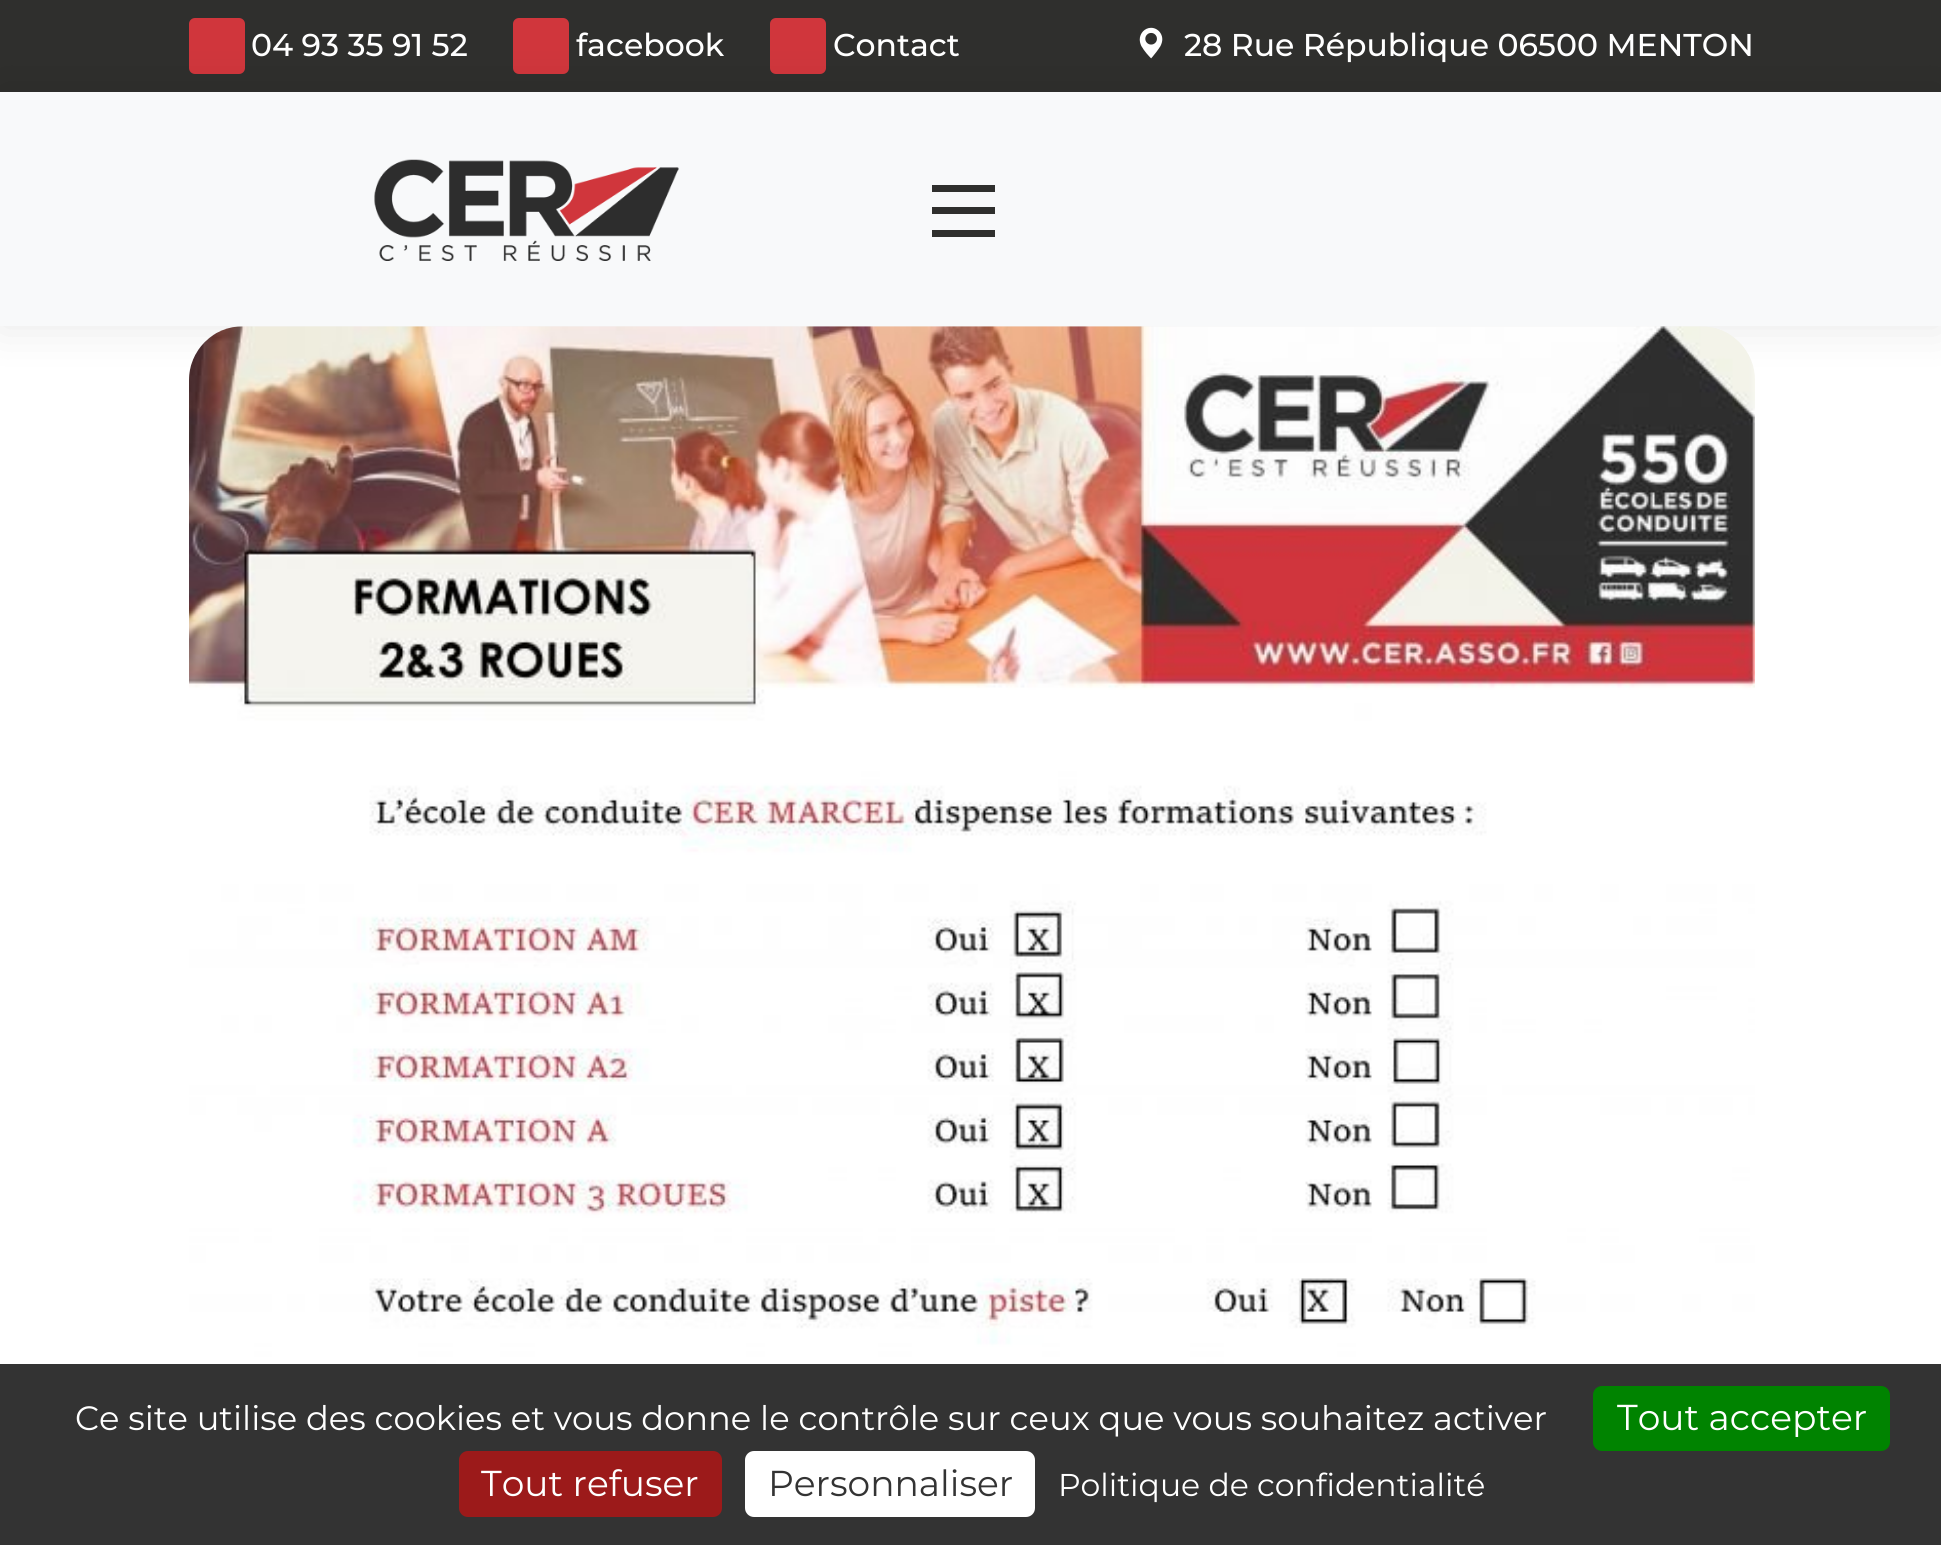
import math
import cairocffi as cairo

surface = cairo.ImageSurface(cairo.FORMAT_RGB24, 1941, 1545)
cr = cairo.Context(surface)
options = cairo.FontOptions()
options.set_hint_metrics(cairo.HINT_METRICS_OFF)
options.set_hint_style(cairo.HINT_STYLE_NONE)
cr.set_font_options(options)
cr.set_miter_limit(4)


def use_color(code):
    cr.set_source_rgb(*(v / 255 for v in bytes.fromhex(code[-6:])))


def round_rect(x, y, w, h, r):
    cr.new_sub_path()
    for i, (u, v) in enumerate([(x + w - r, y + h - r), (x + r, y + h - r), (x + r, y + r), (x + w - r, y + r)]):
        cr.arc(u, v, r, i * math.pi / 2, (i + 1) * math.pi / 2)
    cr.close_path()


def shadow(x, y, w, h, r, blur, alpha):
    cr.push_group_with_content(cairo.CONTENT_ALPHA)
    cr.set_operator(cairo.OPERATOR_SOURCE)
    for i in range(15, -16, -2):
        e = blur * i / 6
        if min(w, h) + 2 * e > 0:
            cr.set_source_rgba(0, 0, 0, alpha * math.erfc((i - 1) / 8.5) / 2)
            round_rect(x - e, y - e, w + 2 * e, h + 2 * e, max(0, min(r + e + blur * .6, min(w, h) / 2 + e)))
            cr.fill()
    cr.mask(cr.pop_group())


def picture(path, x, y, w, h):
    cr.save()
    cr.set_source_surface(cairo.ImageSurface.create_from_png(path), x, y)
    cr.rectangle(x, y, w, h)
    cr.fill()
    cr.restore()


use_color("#ffffff")
cr.paint()
use_color("#2f2f2d")
cr.rectangle(0, 0, 1941, 92)
cr.fill()
use_color("#d0363c")
round_rect(189, 18, 56, 56, 6)
cr.fill()
round_rect(513, 18, 56, 56, 6)
cr.fill()
round_rect(770, 18, 56, 56, 6)
cr.fill()
picture("img2.png", 1139, 27, 24, 32)
use_color("#000000")
shadow(0, 92, 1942, 234, 0, 22.5, 0.1)
use_color("#f8f9fa")
cr.rectangle(0, 92, 1941, 234)
cr.fill()
picture("img1.png", 374, 159, 305, 102)
use_color("#2f2f2d")
cr.rectangle(932, 185, 63, 7)
cr.fill()
cr.rectangle(932, 207, 63, 7)
cr.fill()
cr.rectangle(932, 230, 63, 7)
cr.fill()
cr.select_font_face("Montserrat Medium")
cr.set_font_size(31.5)
use_color("#ffffff")
cr.move_to(251, 56)
cr.show_text("04 93 35 91 52")
cr.move_to(576, 56)
cr.show_text("facebook")
cr.move_to(833, 56)
cr.show_text("Contact")
cr.move_to(1184, 56)
cr.show_text("28 Rue République 06500 MENTON")
picture("img3.png", 189, 326, 1566, 1038)
use_color("#333333")
cr.rectangle(0, 1364, 1941, 181)
cr.fill()
cr.select_font_face("Montserrat")
cr.set_font_size(33.75)
use_color("#ffffff")
cr.move_to(75, 1430)
cr.show_text("Ce site utilise des cookies et vous donne le contrôle sur ceux que vous souhaitez activer")
use_color("#008300")
round_rect(1593, 1386, 297, 65, 9)
cr.fill()
cr.set_font_size(36)
use_color("#ffffff")
cr.move_to(1617, 1430)
cr.show_text("Tout accepter")
use_color("#9c1a1a")
round_rect(459, 1451, 263, 66, 9)
cr.fill()
use_color("#ffffff")
cr.move_to(481, 1496)
cr.show_text("Tout refuser")
round_rect(745, 1451, 290, 66, 9)
cr.fill()
use_color("#333333")
cr.move_to(768, 1496)
cr.show_text("Personnaliser")
cr.set_font_size(31.5)
use_color("#ffffff")
cr.move_to(1058, 1496)
cr.show_text("Politique de confidentialité")
surface.write_to_png("result.png")
